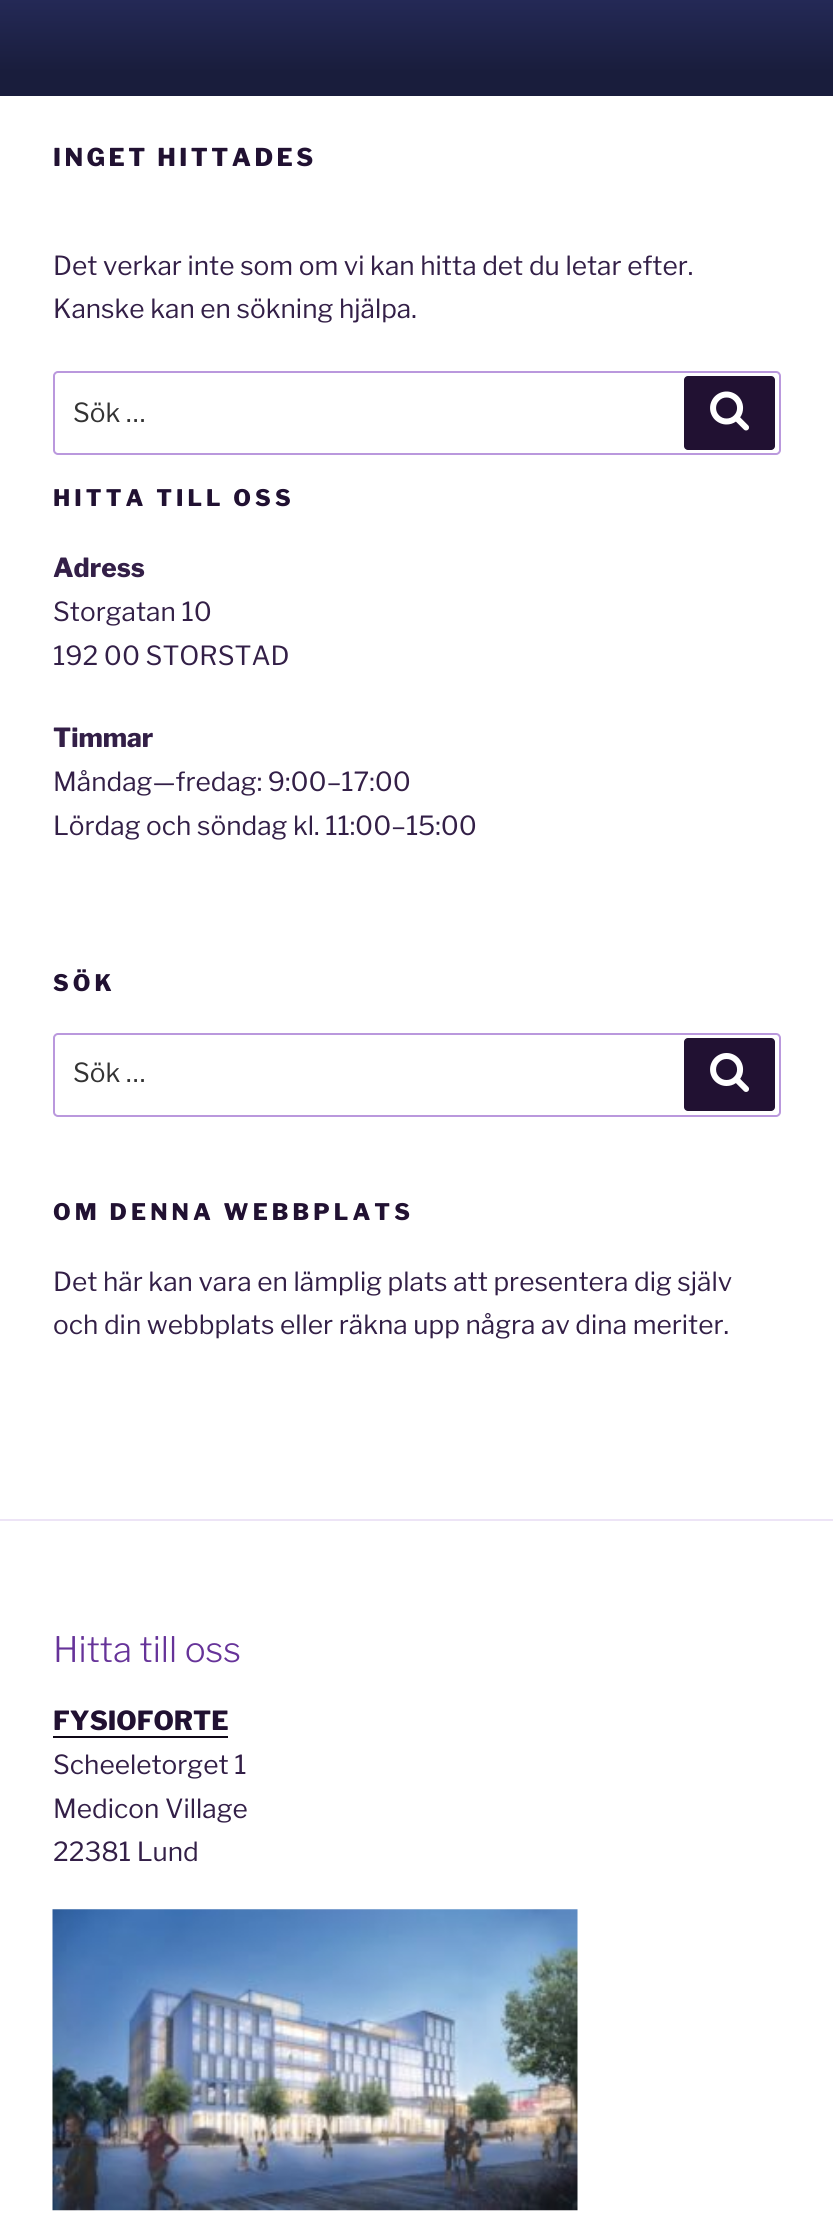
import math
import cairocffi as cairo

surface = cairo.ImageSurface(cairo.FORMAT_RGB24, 833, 2228)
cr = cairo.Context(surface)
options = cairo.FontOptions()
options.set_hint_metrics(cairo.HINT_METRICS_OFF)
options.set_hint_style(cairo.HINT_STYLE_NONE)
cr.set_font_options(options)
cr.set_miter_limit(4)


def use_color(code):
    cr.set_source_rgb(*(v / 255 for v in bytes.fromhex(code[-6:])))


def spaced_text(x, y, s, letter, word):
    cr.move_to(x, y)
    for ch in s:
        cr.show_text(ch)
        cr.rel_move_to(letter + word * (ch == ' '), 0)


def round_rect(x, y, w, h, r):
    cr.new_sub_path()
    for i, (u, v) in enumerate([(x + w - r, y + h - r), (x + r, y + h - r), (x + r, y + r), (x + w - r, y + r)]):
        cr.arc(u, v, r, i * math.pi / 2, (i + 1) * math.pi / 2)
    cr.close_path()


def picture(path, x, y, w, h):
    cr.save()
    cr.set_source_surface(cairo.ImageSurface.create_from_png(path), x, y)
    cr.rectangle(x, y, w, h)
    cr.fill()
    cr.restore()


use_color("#ffffff")
cr.paint()
gradient = cairo.LinearGradient(417, 0, 417, 96)
gradient.add_color_stop_rgba(0, 0.141, 0.161, 0.337, 1)
gradient.add_color_stop_rgba(0.75, 0.098, 0.114, 0.235, 1)
gradient.add_color_stop_rgba(1, 0.098, 0.114, 0.235, 1)
cr.set_source(gradient)
cr.rectangle(0, 0, 833, 96)
cr.fill()
cr.select_font_face("Libre Franklin Thin")
cr.set_font_size(24.5)
use_color("#211132")
spaced_text(53, 166, "INGET HITTADES", 3.5, 0)
cr.select_font_face("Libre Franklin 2 Thin")
cr.set_font_size(26.25)
use_color("#331f47")
cr.move_to(53, 275)
cr.show_text("Det verkar inte som om vi kan hitta det du letar efter.")
cr.move_to(53, 318)
cr.show_text("Kanske kan en sökning hjälpa.")
round_rect(54, 372, 726, 82, 4)
use_color("#ba98dd")
cr.stroke()
use_color("#333333")
cr.move_to(73, 422)
cr.show_text("Sök …")
use_color("#211132")
round_rect(684, 376, 91, 74, 4)
cr.fill()
picture("img1.png", 710, 391, 39, 40)
cr.select_font_face("Libre Franklin Thin")
cr.set_font_size(22.75)
spaced_text(53, 506, "HITTA TILL OSS", 4.1, 0)
cr.set_font_size(26.25)
use_color("#331f47")
cr.move_to(53, 577)
cr.show_text("Adress")
cr.select_font_face("Libre Franklin 2 Thin")
cr.move_to(53, 621)
cr.show_text("Storgatan 10")
cr.move_to(53, 665)
cr.show_text("192 00 STORSTAD")
cr.select_font_face("Libre Franklin Thin")
cr.move_to(53, 747)
cr.show_text("Timmar")
cr.select_font_face("Libre Franklin 2 Thin")
cr.move_to(53, 791)
cr.show_text("Måndag—fredag: 9:00–17:00")
cr.move_to(53, 835)
cr.show_text("Lördag och söndag kl. 11:00–15:00")
cr.select_font_face("Libre Franklin Thin")
cr.set_font_size(22.75)
use_color("#211132")
spaced_text(53, 991, "SÖK", 4.1, 0)
round_rect(54, 1034, 726, 82, 4)
use_color("#ba98dd")
cr.stroke()
cr.select_font_face("Libre Franklin 2 Thin")
cr.set_font_size(26.25)
use_color("#333333")
cr.move_to(73, 1082)
cr.show_text("Sök …")
use_color("#211132")
round_rect(684, 1038, 91, 73, 4)
cr.fill()
picture("img2.png", 710, 1053, 39, 39)
cr.select_font_face("Libre Franklin Thin")
cr.set_font_size(22.75)
spaced_text(53, 1220, "OM DENNA WEBBPLATS", 4.1, 0)
cr.select_font_face("Libre Franklin 2 Thin")
cr.set_font_size(26.25)
use_color("#331f47")
cr.move_to(53, 1291)
cr.show_text("Det här kan vara en lämplig plats att presentera dig själv")
cr.move_to(53, 1334)
cr.show_text("och din webbplats eller räkna upp några av dina meriter.")
use_color("#ede4f6")
cr.rectangle(0, 1519, 833, 2)
cr.fill()
cr.select_font_face("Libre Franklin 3 Thin")
cr.set_font_size(35)
use_color("#663399")
cr.move_to(53, 1662)
cr.show_text("Hitta till oss")
cr.select_font_face("Libre Franklin Thin")
cr.set_font_size(26.25)
use_color("#211132")
cr.move_to(53, 1730)
cr.show_text("FYSIOFORTE")
use_color("#0f0817")
cr.rectangle(53, 1736, 175, 2)
cr.fill()
cr.select_font_face("Libre Franklin 2 Thin")
use_color("#331f47")
cr.move_to(53, 1774)
cr.show_text("Scheeletorget 1")
cr.move_to(53, 1818)
cr.show_text("Medicon Village")
cr.move_to(53, 1861)
cr.show_text("22381 Lund")
picture("img3.png", 52, 1909, 526, 302)
surface.write_to_png("result.png")
